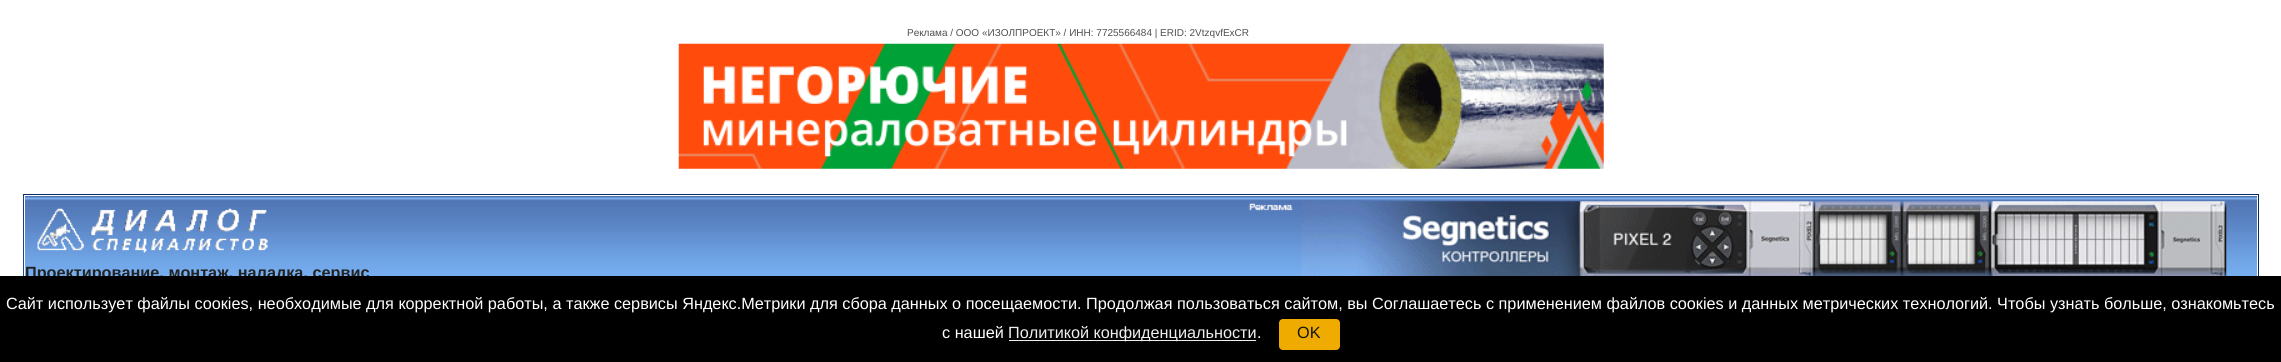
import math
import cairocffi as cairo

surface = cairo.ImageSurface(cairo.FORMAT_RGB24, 2281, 362)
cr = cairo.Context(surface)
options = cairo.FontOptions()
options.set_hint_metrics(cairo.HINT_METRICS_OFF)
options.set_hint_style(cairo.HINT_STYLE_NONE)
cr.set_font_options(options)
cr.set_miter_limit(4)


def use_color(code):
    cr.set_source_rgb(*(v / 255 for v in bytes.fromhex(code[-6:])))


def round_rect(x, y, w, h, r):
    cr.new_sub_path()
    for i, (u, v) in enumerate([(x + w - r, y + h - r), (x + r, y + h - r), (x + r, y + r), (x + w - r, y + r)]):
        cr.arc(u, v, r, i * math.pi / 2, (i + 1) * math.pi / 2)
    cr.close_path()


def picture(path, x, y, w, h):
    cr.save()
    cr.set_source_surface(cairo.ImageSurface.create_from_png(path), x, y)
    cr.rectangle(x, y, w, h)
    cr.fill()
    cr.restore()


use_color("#ffffff")
cr.paint()
cr.select_font_face("Liberation Sans")
cr.set_font_size(10)
use_color("#4f4f4f")
cr.move_to(907, 36)
cr.show_text("Реклама / ООО «ИЗОЛПРОЕКТ» / ИНН: 7725566484 | ERID: 2VtzqvfExCR")
picture("img1.png", 678, 43, 926, 126)
cr.rectangle(23.5, 194.5, 2235, 126)
use_color("#072a66")
cr.set_line_width(1)
cr.stroke()
picture("img2.png", 23, 195, 2234, 81)
cr.rectangle(24.5, 195.5, 2233, 87)
use_color("#ffffff")
cr.stroke()
picture("img3.png", 37, 208, 231, 45)
cr.select_font_face("Liberation Sans", cairo.FONT_SLANT_NORMAL, cairo.FONT_WEIGHT_BOLD)
cr.set_font_size(16.25)
use_color("#222222")
cr.move_to(25, 278)
cr.show_text("Проектирование, монтаж, наладка, сервис")
picture("img4.png", 1248, 203, 45, 8)
picture("img5.png", 1301, 201, 926, 75)
use_color("#000000")
cr.rectangle(0, 276, 2281, 86)
cr.fill()
cr.select_font_face("Liberation Sans")
use_color("#ffffff")
cr.move_to(6, 309)
cr.show_text("Сайт использует файлы соокies, необходимые для корректной работы, а также сервисы Яндекс.Метрики для сбора данных о посещаемости. Продолжая пользоваться сайтом, вы Соглашаетесь с применением файлов соокies и данных метрических технологий. Чтобы узнать больше, ознакомьтесь")
cr.move_to(942, 338)
cr.show_text("с нашей")
use_color("#efefef")
cr.rectangle(1009, 340, 247, 1)
cr.fill()
cr.move_to(1008, 338)
cr.show_text("Политикой конфиденциальности")
use_color("#ffffff")
cr.move_to(1257, 338)
cr.show_text(".")
use_color("#f0ab00")
round_rect(1279, 319, 61, 31, 4)
cr.fill()
use_color("#131313")
cr.move_to(1297, 338)
cr.show_text("OK")
surface.write_to_png("result.png")
